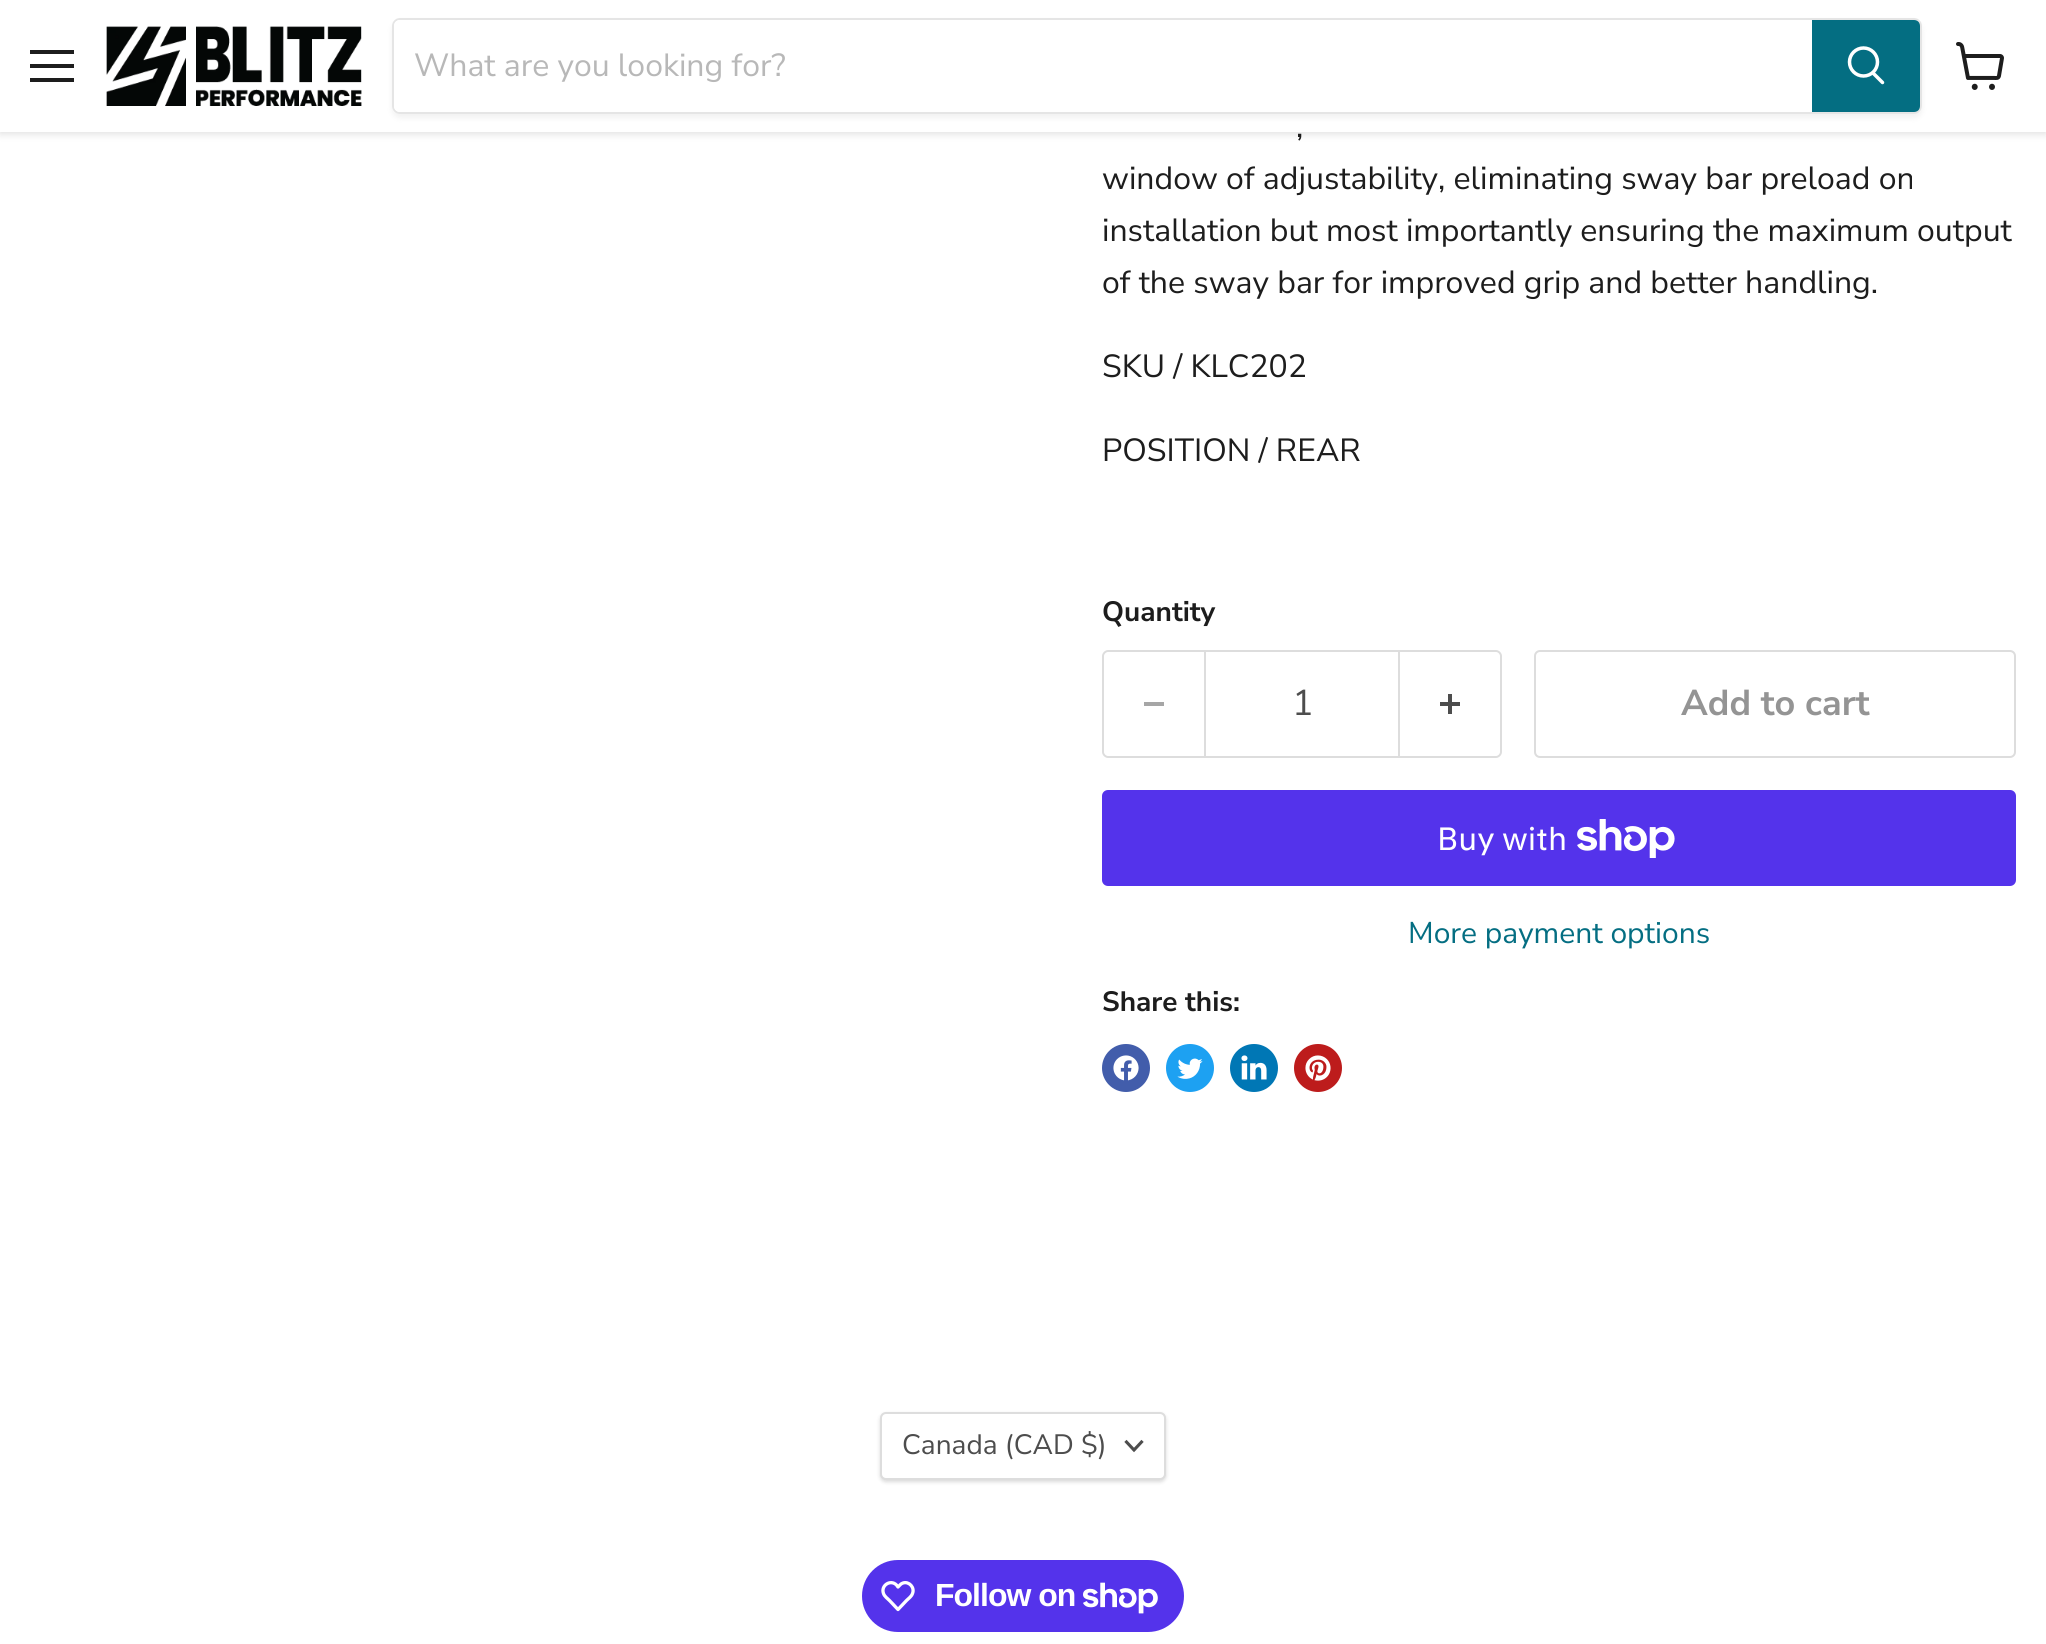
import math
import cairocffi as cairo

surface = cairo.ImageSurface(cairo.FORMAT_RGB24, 2046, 1644)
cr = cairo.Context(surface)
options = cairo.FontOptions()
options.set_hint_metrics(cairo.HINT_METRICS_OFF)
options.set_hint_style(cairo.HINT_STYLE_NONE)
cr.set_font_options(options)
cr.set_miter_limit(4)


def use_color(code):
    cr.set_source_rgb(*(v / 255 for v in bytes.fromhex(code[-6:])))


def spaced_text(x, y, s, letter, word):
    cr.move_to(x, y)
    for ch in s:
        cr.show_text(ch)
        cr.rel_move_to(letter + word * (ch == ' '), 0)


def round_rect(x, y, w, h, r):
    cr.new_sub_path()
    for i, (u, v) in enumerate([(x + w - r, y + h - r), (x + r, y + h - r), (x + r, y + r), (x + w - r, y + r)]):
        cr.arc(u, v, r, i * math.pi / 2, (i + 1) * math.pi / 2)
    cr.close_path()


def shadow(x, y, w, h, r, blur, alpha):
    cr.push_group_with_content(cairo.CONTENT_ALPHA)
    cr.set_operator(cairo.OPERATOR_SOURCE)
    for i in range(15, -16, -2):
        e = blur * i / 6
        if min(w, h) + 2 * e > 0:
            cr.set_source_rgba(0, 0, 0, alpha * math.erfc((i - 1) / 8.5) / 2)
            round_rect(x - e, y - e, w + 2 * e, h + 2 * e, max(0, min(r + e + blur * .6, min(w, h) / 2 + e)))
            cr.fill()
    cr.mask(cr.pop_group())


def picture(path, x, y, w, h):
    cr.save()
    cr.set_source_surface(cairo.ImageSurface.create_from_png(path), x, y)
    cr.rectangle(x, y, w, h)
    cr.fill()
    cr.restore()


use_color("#ffffff")
cr.paint()
use_color("#808080")
shadow(0, 2, 2046, 132, 0, 4, 0.25)
use_color("#ffffff")
cr.rectangle(0, 0, 2046, 132)
cr.fill()
use_color("#1d1d1d")
cr.rectangle(30, 50, 44, 4)
cr.fill()
cr.rectangle(30, 64, 44, 4)
cr.fill()
cr.rectangle(30, 78, 44, 4)
cr.fill()
picture("img1.png", 106, 26, 256, 80)
cr.save()
cr.set_fill_rule(cairo.FILL_RULE_EVEN_ODD)
cr.new_path()
cr.move_to(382, 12)
cr.line_to(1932, 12)
cr.line_to(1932, 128)
cr.line_to(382, 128)
cr.close_path()
cr.move_to(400, 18)
cr.line_to(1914, 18)
cr.curve_to(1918.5, 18, 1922, 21.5, 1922, 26)
cr.line_to(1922, 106)
cr.curve_to(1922, 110.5, 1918.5, 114, 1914, 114)
cr.line_to(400, 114)
cr.curve_to(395.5, 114, 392, 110.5, 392, 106)
cr.line_to(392, 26)
cr.curve_to(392, 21.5, 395.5, 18, 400, 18)
cr.close_path()
cr.clip()
use_color("#808080")
shadow(392, 22, 1530, 96, 8, 3, 0.11)
cr.restore()
round_rect(393, 19, 1528, 94, 7)
cr.set_source_rgba(0.502, 0.502, 0.502, 0.2)
cr.stroke()
use_color("#ffffff")
cr.new_path()
cr.move_to(400, 20)
cr.line_to(1812, 20)
cr.line_to(1812, 112)
cr.line_to(400, 112)
cr.curve_to(396.5, 112, 394, 109.5, 394, 106)
cr.line_to(394, 26)
cr.curve_to(394, 22.5, 396.5, 20, 400, 20)
cr.close_path()
cr.fill()
cr.select_font_face("Nunito Sans")
cr.set_font_size(32)
use_color("#b8b8b8")
cr.move_to(414, 76)
cr.show_text("What are you looking for?")
use_color("#046e82")
cr.new_path()
cr.move_to(1813, 21)
cr.line_to(1914, 21)
cr.curve_to(1917, 21, 1919, 23, 1919, 26)
cr.line_to(1919, 106)
cr.curve_to(1919, 109, 1917, 111, 1914, 111)
cr.line_to(1813, 111)
cr.close_path()
cr.fill_preserve()
cr.stroke()
cr.new_path()
cr.move_to(1882.5, 82.5)
cr.line_to(1873, 73)
use_color("#ffffff")
cr.set_line_width(3.5)
cr.set_line_cap(cairo.LINE_CAP_ROUND)
cr.stroke()
cr.arc(1863.5, 62, 14, 0, 2 * math.pi)
cr.set_line_cap(cairo.LINE_CAP_BUTT)
cr.stroke()
picture("img2.png", 1956, 42, 48, 48)
use_color("#1d1d1d")
cr.move_to(1296, 137)
cr.show_text(",")
cr.move_to(1102, 189)
cr.show_text("window of adjustability, eliminating sway bar preload on")
cr.move_to(1102, 241)
cr.show_text("installation but most importantly ensuring the maximum output")
cr.move_to(1102, 293)
cr.show_text("of the sway bar for improved grip and better handling.")
cr.move_to(1102, 377)
cr.show_text("SKU / KLC202")
cr.move_to(1102, 461)
cr.show_text("POSITION / REAR")
cr.select_font_face("Nunito Sans", cairo.FONT_SLANT_NORMAL, cairo.FONT_WEIGHT_BOLD)
cr.set_font_size(28)
cr.move_to(1102, 621)
cr.show_text("Quantity")
use_color("#dddddd")
cr.set_fill_rule(cairo.FILL_RULE_EVEN_ODD)
cr.new_path()
cr.move_to(1108, 650)
cr.line_to(1204, 650)
cr.line_to(1204, 758)
cr.line_to(1108, 758)
cr.curve_to(1105, 758, 1102, 755, 1102, 752)
cr.line_to(1102, 656)
cr.curve_to(1102, 653, 1105, 650, 1108, 650)
cr.close_path()
cr.move_to(1108, 652)
cr.line_to(1204, 652)
cr.line_to(1204, 756)
cr.line_to(1108, 756)
cr.curve_to(1106, 756, 1104, 754, 1104, 752)
cr.line_to(1104, 656)
cr.curve_to(1104, 654, 1106, 652, 1108, 652)
cr.close_path()
cr.fill()
use_color("#a6a6a6")
cr.rectangle(1144, 702, 20, 4)
cr.fill()
cr.rectangle(1205, 651, 194, 106)
use_color("#dddddd")
cr.set_line_width(2)
cr.stroke()
cr.select_font_face("Nunito Sans")
cr.set_font_size(36)
use_color("#4d4d4d")
cr.move_to(1292, 715)
cr.show_text("1")
use_color("#dddddd")
cr.new_path()
cr.move_to(1400, 650)
cr.line_to(1496, 650)
cr.curve_to(1499, 650, 1502, 653, 1502, 656)
cr.line_to(1502, 752)
cr.curve_to(1502, 755, 1499, 758, 1496, 758)
cr.line_to(1400, 758)
cr.close_path()
cr.move_to(1400, 652)
cr.line_to(1496, 652)
cr.curve_to(1498, 652, 1500, 654, 1500, 656)
cr.line_to(1500, 752)
cr.curve_to(1500, 754, 1498, 756, 1496, 756)
cr.line_to(1400, 756)
cr.close_path()
cr.fill()
picture("img3.png", 1440, 694, 20, 20)
round_rect(1535, 651, 480, 106, 5)
cr.stroke()
cr.select_font_face("Nunito Sans", cairo.FONT_SLANT_NORMAL, cairo.FONT_WEIGHT_BOLD)
use_color("#949494")
cr.move_to(1681, 715)
cr.show_text("Add to cart")
use_color("#5433eb")
round_rect(1102, 790, 914, 96, 6)
cr.fill()
cr.select_font_face("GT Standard")
cr.set_font_size(32)
use_color("#ffffff")
cr.move_to(1437, 850)
cr.show_text("Buy with")
picture("img4.png", 1577, 819, 98, 39)
cr.select_font_face("Nunito Sans")
cr.set_font_size(30)
use_color("#046e82")
cr.move_to(1408, 943)
cr.show_text("More payment options")
cr.select_font_face("Nunito Sans", cairo.FONT_SLANT_NORMAL, cairo.FONT_WEIGHT_BOLD)
cr.set_font_size(28)
use_color("#1d1d1d")
cr.move_to(1102, 1011)
cr.show_text("Share this:")
use_color("#425dab")
cr.new_path()
cr.arc(1126, 1068, 24, 0, 2 * math.pi)
cr.fill()
picture("img5.png", 1113, 1055, 26, 26)
use_color("#1da1f2")
cr.arc(1190, 1068, 24, 0, 2 * math.pi)
cr.fill()
picture("img6.png", 1177, 1058, 26, 21)
use_color("#0077b5")
cr.arc(1254, 1068, 24, 0, 2 * math.pi)
cr.fill()
picture("img7.png", 1241, 1055, 26, 25)
use_color("#bd1c1c")
cr.arc(1318, 1068, 24, 0, 2 * math.pi)
cr.fill()
picture("img8.png", 1305, 1055, 26, 26)
use_color("#000000")
shadow(880, 1414, 286, 68, 6, 2, 0.15)
use_color("#ffffff")
round_rect(881, 1413, 284, 66, 5)
cr.fill_preserve()
use_color("#dddddd")
cr.stroke()
cr.select_font_face("Nunito Sans")
use_color("#4d4d4d")
cr.move_to(902, 1454)
cr.show_text("Canada (CAD $)")
cr.new_path()
cr.move_to(1134, 1450)
cr.line_to(1141.5, 1442)
cr.move_to(1134, 1450)
cr.line_to(1126.5, 1442)
cr.set_line_width(3.1)
cr.set_line_cap(cairo.LINE_CAP_SQUARE)
cr.stroke()
use_color("#5433eb")
round_rect(862, 1560, 322, 72, 36)
cr.fill()
cr.new_path()
cr.move_to(896.5, 1585)
cr.line_to(898, 1587)
cr.curve_to(899.5, 1585.5, 901, 1583.5, 903, 1583)
cr.curve_to(909, 1581, 915, 1587.5, 912.5, 1593.5)
cr.curve_to(911.5, 1596.5, 908.5, 1598.5, 906.5, 1600.5)
cr.line_to(898, 1609.5)
cr.line_to(889.5, 1600.5)
cr.curve_to(887.5, 1598.5, 884.5, 1596.5, 883.5, 1593.5)
cr.curve_to(880.5, 1585.5, 890.5, 1579, 896.5, 1585)
cr.close_path()
use_color("#ffffff")
cr.set_line_width(3.3)
cr.set_line_cap(cairo.LINE_CAP_BUTT)
cr.set_line_join(cairo.LINE_JOIN_ROUND)
cr.stroke()
cr.select_font_face("Liberation Sans", cairo.FONT_SLANT_NORMAL, cairo.FONT_WEIGHT_BOLD)
cr.set_font_size(32)
spaced_text(935, 1606, "Follow on", -1, 0)
picture("img9.png", 1083, 1582, 75, 32)
surface.write_to_png("result.png")
